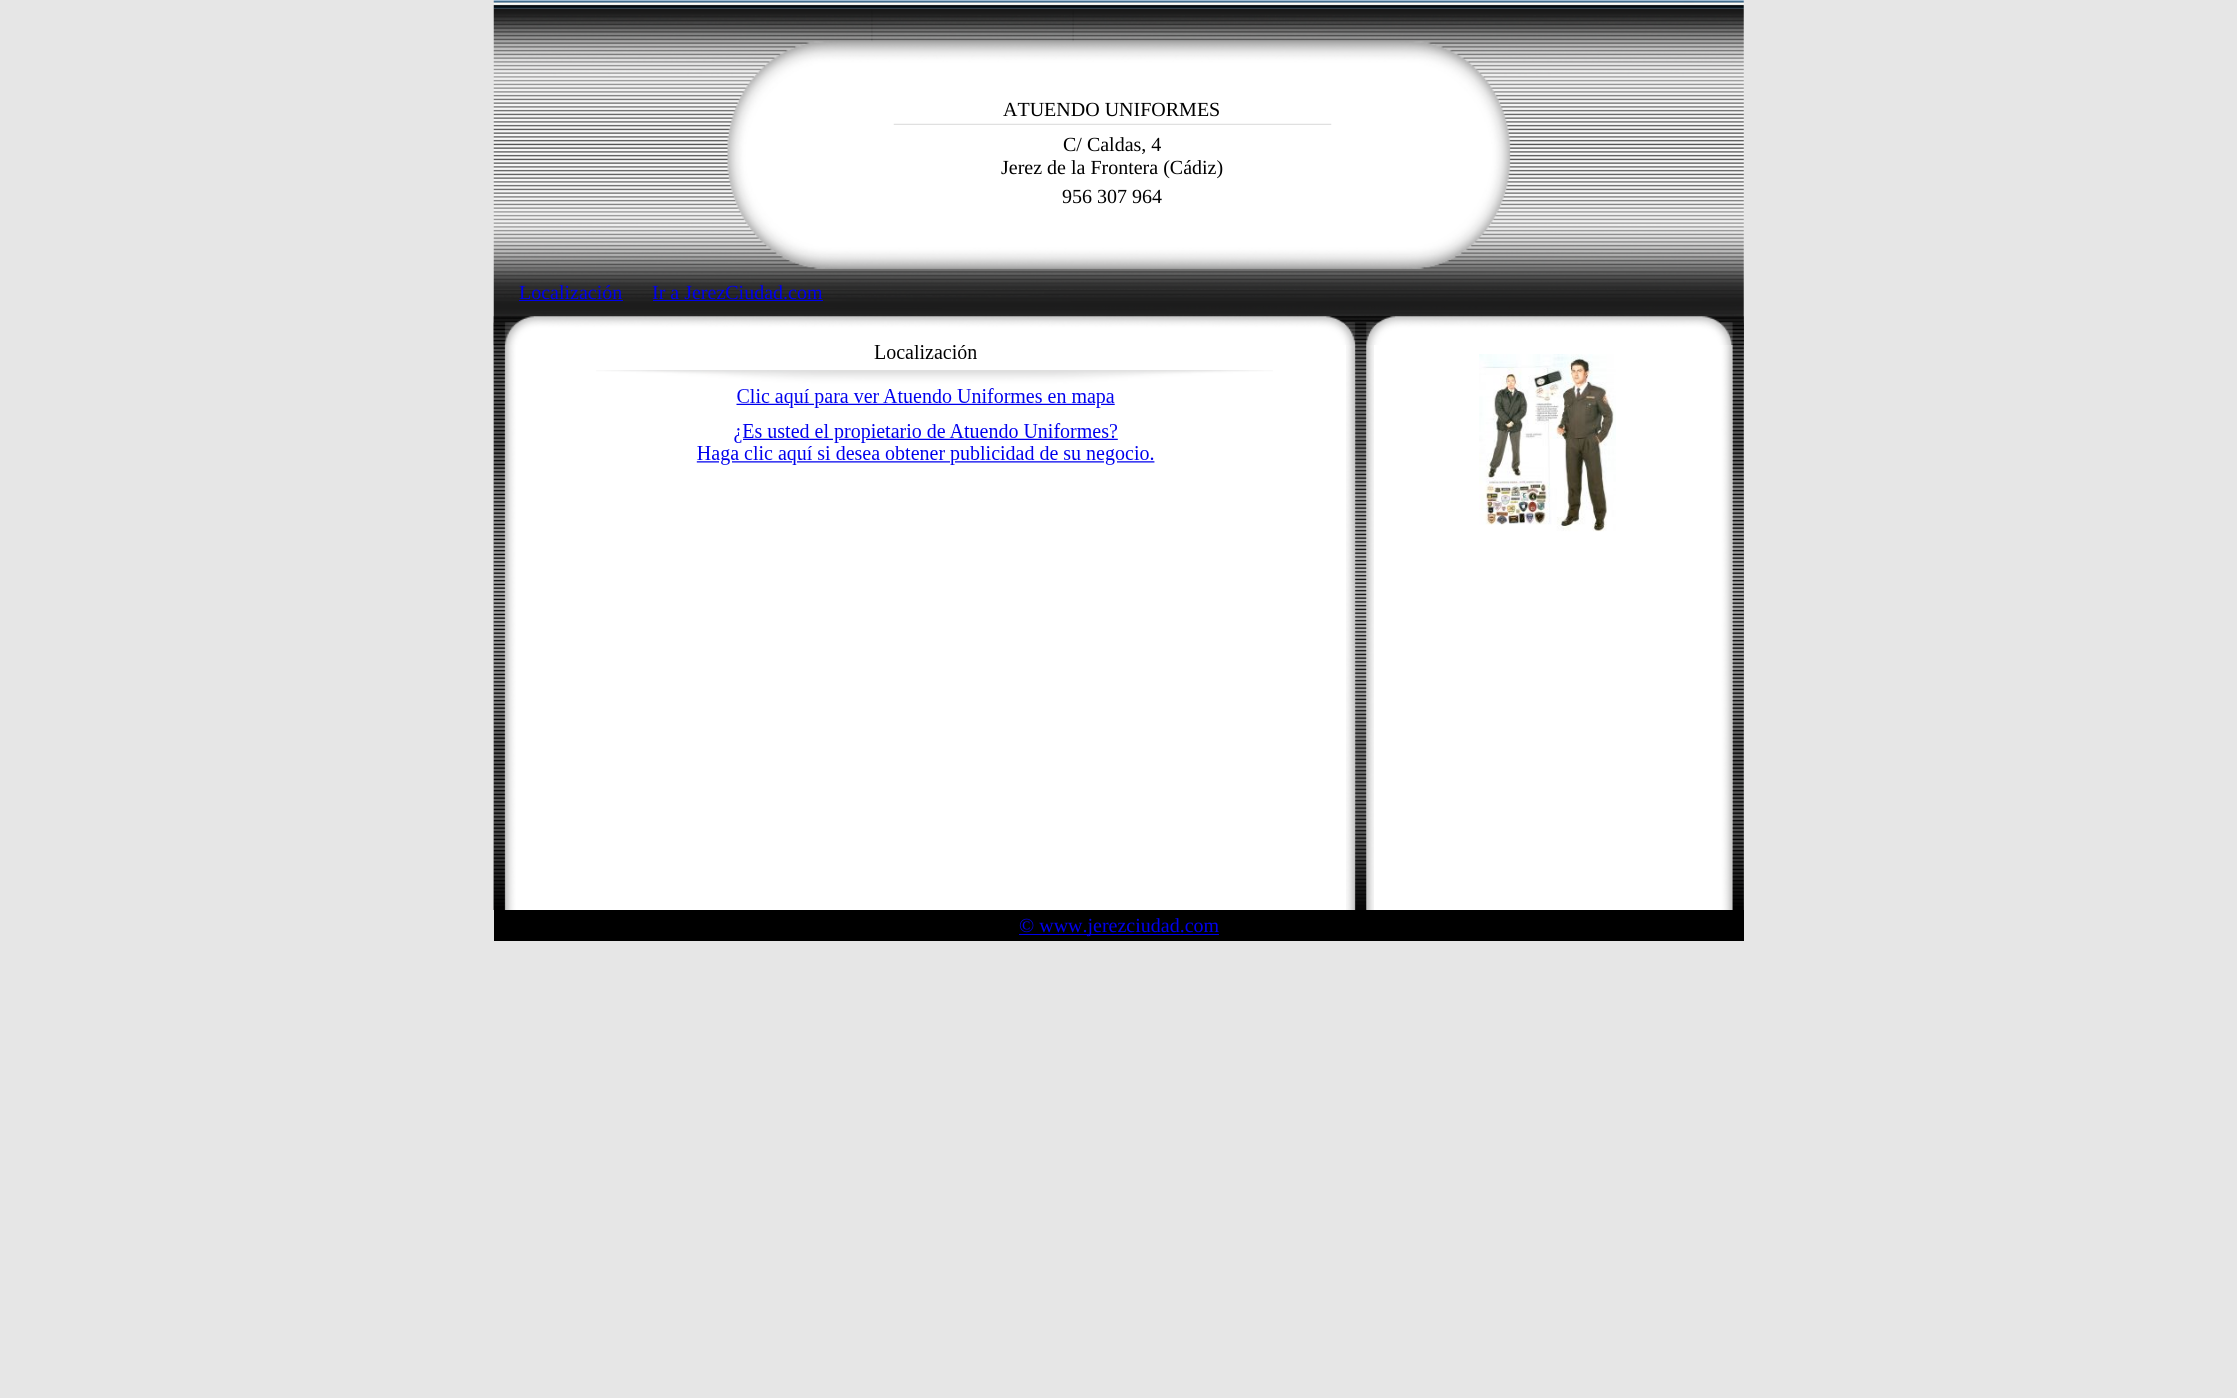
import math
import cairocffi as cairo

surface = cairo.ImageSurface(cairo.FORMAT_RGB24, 2237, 1398)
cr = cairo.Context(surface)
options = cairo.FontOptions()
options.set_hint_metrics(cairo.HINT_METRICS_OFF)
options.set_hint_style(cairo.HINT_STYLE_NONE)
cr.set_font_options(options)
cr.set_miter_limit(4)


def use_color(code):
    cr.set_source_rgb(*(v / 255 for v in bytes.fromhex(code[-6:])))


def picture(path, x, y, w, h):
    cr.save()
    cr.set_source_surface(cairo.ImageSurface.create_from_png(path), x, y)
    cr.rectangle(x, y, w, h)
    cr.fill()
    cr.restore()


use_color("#e6e6e6")
cr.paint()
picture("img2.png", 493, 8, 1251, 261)
picture("img1.png", 493, 0, 1251, 9)
cr.select_font_face("Liberation Serif")
cr.set_font_size(20)
use_color("#000000")
cr.move_to(1003, 116)
cr.show_text("ATUENDO UNIFORMES")
picture("img3.png", 893, 123, 439, 2)
cr.move_to(1063, 151)
cr.show_text("C/ Caldas, 4")
cr.move_to(1001, 174)
cr.show_text("Jerez de la Frontera (Cádiz)")
cr.move_to(1062, 203)
cr.show_text("956 307 964")
picture("img4.png", 493, 268, 1251, 55)
use_color("#0000ee")
cr.move_to(519, 299)
cr.show_text("Localización")
cr.rectangle(519, 300, 104, 1)
cr.fill()
cr.move_to(652, 299)
cr.show_text("Ir a JerezCiudad.com")
cr.rectangle(653, 300, 170, 1)
cr.fill()
use_color("#ffffff")
cr.rectangle(516, 323, 1228, 587)
cr.fill()
picture("img6.png", 493, 322, 24, 588)
picture("img7.png", 493, 322, 24, 588)
picture("img9.png", 1346, 322, 28, 588)
picture("img10.png", 1346, 322, 28, 588)
picture("img12.png", 1721, 322, 23, 588)
picture("img13.png", 1721, 322, 23, 588)
picture("img5.png", 493, 316, 1251, 29)
picture("img8.png", 596, 345, 677, 120)
picture("img11.png", 1479, 354, 137, 178)
use_color("#000000")
cr.rectangle(494, 910, 1250, 31)
cr.fill()
use_color("#0000ee")
cr.rectangle(1019, 934, 200, 1)
cr.fill()
cr.move_to(1019, 932)
cr.show_text("© www.jerezciudad.com")
surface.write_to_png("result.png")
